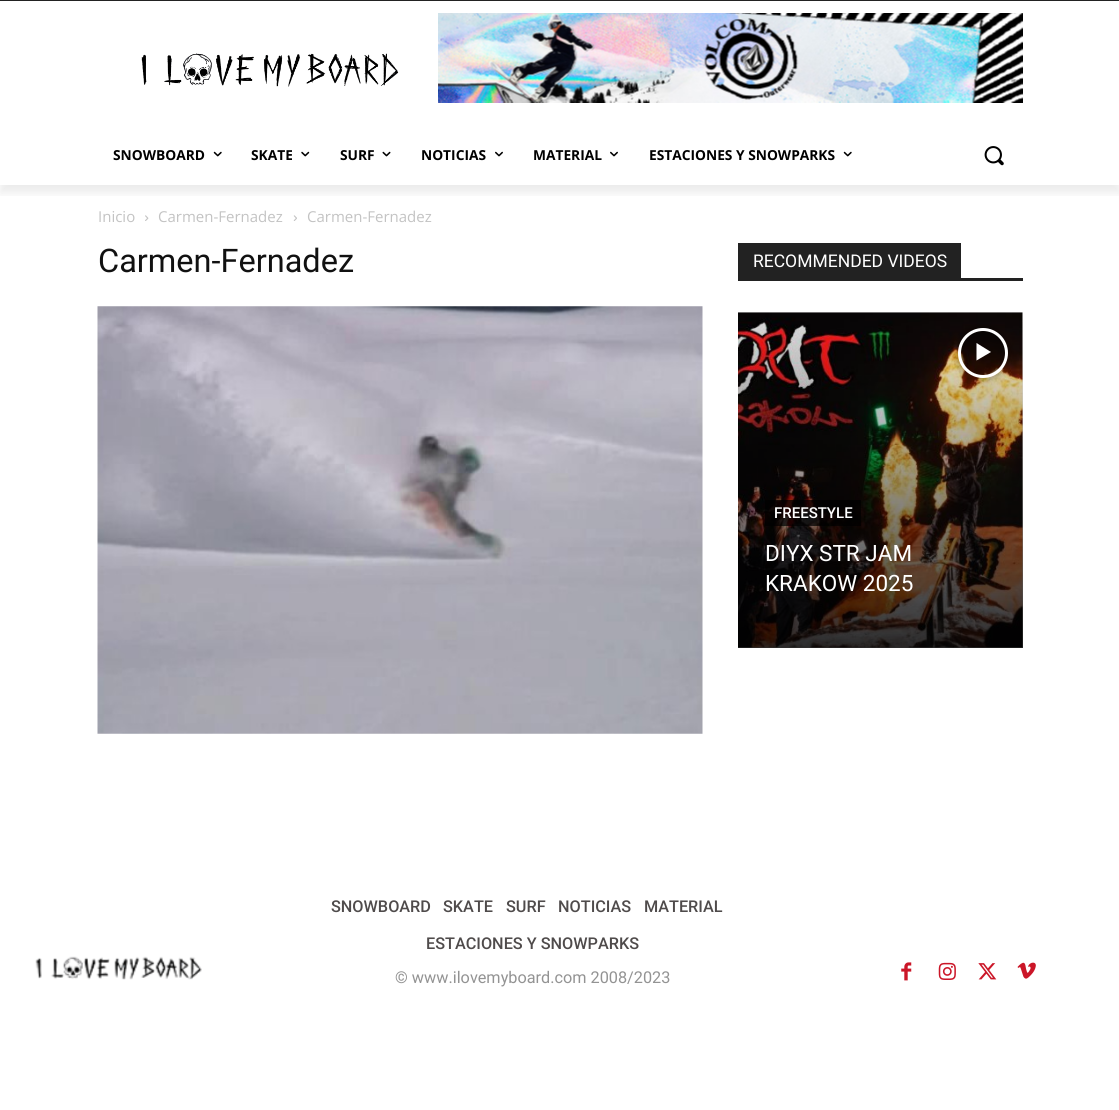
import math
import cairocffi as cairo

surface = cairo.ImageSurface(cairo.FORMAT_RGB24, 1119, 1110)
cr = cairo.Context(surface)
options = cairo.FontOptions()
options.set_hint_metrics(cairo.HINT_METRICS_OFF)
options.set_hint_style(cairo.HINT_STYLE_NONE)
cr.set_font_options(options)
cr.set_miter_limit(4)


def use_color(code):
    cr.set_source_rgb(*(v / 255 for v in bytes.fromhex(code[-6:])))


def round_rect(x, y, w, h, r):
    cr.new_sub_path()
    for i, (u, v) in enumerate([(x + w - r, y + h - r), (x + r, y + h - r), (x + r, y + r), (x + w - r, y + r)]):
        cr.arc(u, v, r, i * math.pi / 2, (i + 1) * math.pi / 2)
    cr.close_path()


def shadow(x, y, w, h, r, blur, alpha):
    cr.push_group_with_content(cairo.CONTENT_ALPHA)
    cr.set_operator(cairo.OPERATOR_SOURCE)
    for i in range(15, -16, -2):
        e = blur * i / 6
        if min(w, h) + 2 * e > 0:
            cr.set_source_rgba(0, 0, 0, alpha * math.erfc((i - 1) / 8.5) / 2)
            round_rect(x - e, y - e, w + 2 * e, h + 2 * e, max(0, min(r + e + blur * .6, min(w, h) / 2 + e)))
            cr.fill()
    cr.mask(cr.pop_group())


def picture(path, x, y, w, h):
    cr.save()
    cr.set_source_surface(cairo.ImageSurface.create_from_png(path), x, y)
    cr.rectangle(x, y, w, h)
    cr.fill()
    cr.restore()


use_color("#ffffff")
cr.paint()
use_color("#222222")
cr.rectangle(0, 0, 1119, 1)
cr.fill()
picture("img1.png", 141, 53, 258, 34)
picture("img2.png", 438, 13, 585, 90)
cr.save()
cr.rectangle(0, 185, 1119, 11)
cr.clip()
use_color("#000000")
shadow(0, 8, 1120, 185, 0, 5, 0.08)
cr.restore()
cr.select_font_face("Open Sans", cairo.FONT_SLANT_NORMAL, cairo.FONT_WEIGHT_BOLD)
cr.set_font_size(13.75)
use_color("#000000")
cr.move_to(113, 160)
cr.show_text("SNOWBOARD")
picture("img3.png", 213, 151, 9, 6)
cr.move_to(251, 160)
cr.show_text("SKATE")
picture("img4.png", 301, 151, 9, 6)
cr.move_to(340, 160)
cr.show_text("SURF")
picture("img5.png", 382, 151, 9, 6)
cr.move_to(421, 160)
cr.show_text("NOTICIAS")
picture("img6.png", 495, 151, 8, 6)
cr.move_to(533, 160)
cr.show_text("MATERIAL")
picture("img6.png", 610, 151, 8, 6)
cr.move_to(649, 160)
cr.show_text("ESTACIONES Y SNOWPARKS")
picture("img3.png", 843, 151, 9, 6)
picture("img7.png", 984, 146, 20, 20)
cr.select_font_face("Open Sans")
cr.set_font_size(15)
use_color("#c3c3c3")
cr.move_to(98, 222)
cr.show_text("Inicio")
picture("img8.png", 145, 215, 4, 6)
cr.move_to(158, 222)
cr.show_text("Carmen-Fernadez")
picture("img9.png", 293, 215, 4, 6)
cr.move_to(307, 222)
cr.show_text("Carmen-Fernadez")
cr.select_font_face("Roboto")
cr.set_font_size(32.5)
use_color("#111111")
cr.move_to(98, 272)
cr.show_text("Carmen-Fernadez")
picture("img10.png", 97, 306, 606, 428)
use_color("#222222")
cr.rectangle(738, 278, 285, 3)
cr.fill()
cr.rectangle(738, 243, 223, 35)
cr.fill()
cr.set_font_size(17.5)
use_color("#ffffff")
cr.move_to(753, 267)
cr.show_text("RECOMMENDED VIDEOS")
picture("img11.png", 738, 312, 285, 336)
gradient = cairo.LinearGradient(880, 313, 880, 648)
gradient.add_color_stop_rgba(0, 0, 0, 0, 0)
gradient.add_color_stop_rgba(1, 0, 0, 0, 0.8)
cr.set_source(gradient)
cr.rectangle(738, 322, 285, 326)
cr.fill()
cr.save()
cr.set_fill_rule(cairo.FILL_RULE_EVEN_ODD)
cr.new_path()
cr.move_to(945, 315)
cr.line_to(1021, 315)
cr.line_to(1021, 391)
cr.line_to(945, 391)
cr.close_path()
cr.move_to(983, 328)
cr.curve_to(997, 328, 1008, 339, 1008, 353)
cr.curve_to(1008, 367, 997, 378, 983, 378)
cr.curve_to(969, 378, 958, 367, 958, 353)
cr.curve_to(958, 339, 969, 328, 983, 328)
cr.close_path()
cr.clip()
use_color("#000000")
shadow(958, 328, 50, 50, 25, 4, 0.4)
cr.restore()
cr.set_source_rgba(0, 0, 0, 0.48)
cr.arc(983, 353, 23.5, 0, 2 * math.pi)
cr.fill_preserve()
use_color("#ffffff")
cr.set_line_width(3)
cr.stroke()
cr.new_path()
cr.move_to(976.5, 343)
cr.line_to(976.5, 360.5)
cr.line_to(991, 352)
cr.close_path()
cr.fill()
cr.set_source_rgba(0, 0, 0, 0.7)
cr.rectangle(765, 500, 96, 26)
cr.fill()
cr.select_font_face("Roboto Medium")
cr.set_font_size(15)
use_color("#ffffff")
cr.move_to(774, 518)
cr.show_text("FREESTYLE")
cr.select_font_face("Roboto")
cr.set_font_size(22.5)
cr.move_to(765, 561)
cr.show_text("DIYX STR JAM")
cr.move_to(765, 591)
cr.show_text("KRAKOW 2025")
picture("img12.png", 35, 956, 167, 24)
cr.select_font_face("Roboto Medium")
cr.set_font_size(16.25)
use_color("#4f4b4b")
cr.move_to(331, 912)
cr.show_text("SNOWBOARD")
cr.move_to(443, 912)
cr.show_text("SKATE")
cr.move_to(506, 912)
cr.show_text("SURF")
cr.move_to(558, 912)
cr.show_text("NOTICIAS")
cr.move_to(644, 912)
cr.show_text("MATERIAL")
cr.move_to(426, 949)
cr.show_text("ESTACIONES Y SNOWPARKS")
cr.select_font_face("Roboto")
use_color("#939393")
cr.move_to(395, 983)
cr.show_text("© www.ilovemyboard.com 2008/2023")
picture("img13.png", 901, 962, 11, 19)
picture("img14.png", 938, 962, 18, 18)
picture("img15.png", 978, 963, 19, 17)
picture("img16.png", 1017, 962, 19, 17)
surface.write_to_png("result.png")
